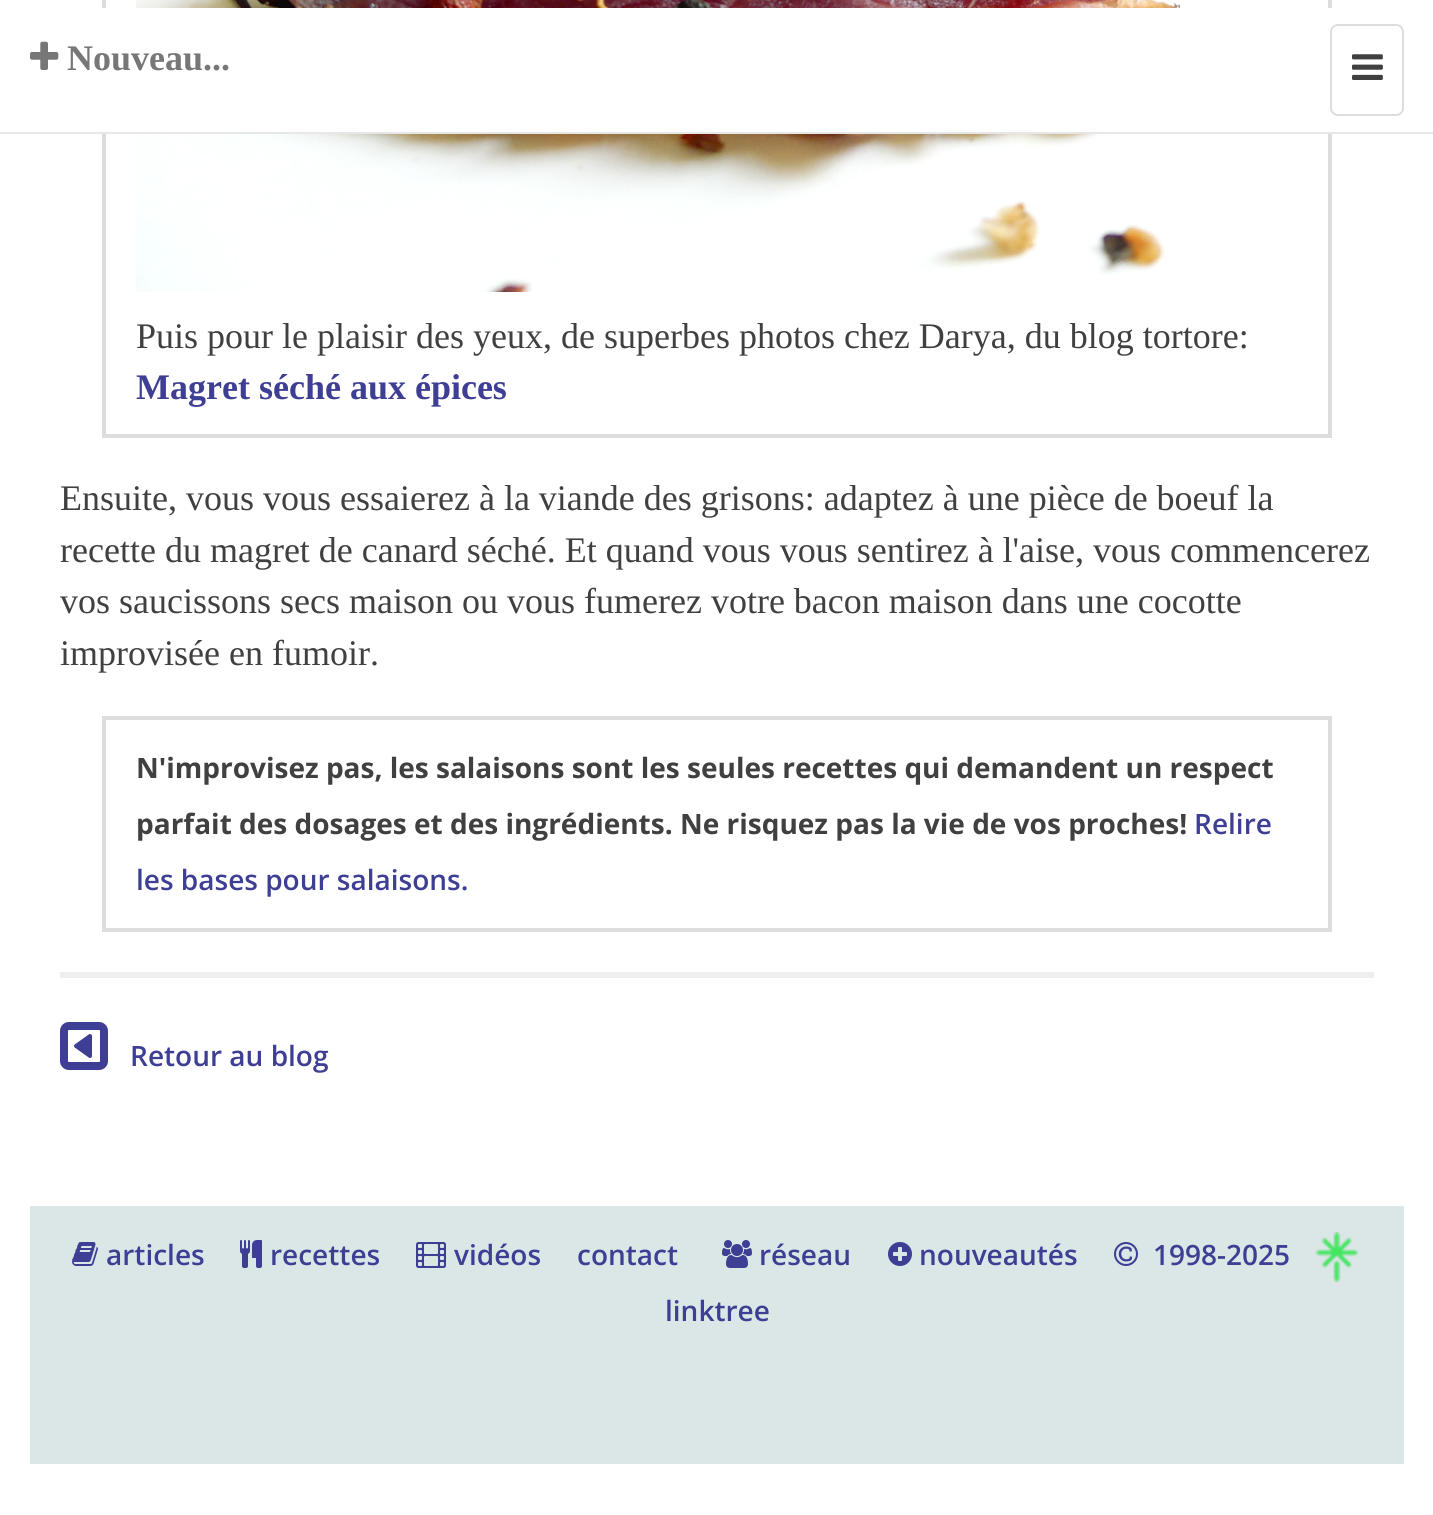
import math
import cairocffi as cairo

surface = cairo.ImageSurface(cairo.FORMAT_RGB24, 1433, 1515)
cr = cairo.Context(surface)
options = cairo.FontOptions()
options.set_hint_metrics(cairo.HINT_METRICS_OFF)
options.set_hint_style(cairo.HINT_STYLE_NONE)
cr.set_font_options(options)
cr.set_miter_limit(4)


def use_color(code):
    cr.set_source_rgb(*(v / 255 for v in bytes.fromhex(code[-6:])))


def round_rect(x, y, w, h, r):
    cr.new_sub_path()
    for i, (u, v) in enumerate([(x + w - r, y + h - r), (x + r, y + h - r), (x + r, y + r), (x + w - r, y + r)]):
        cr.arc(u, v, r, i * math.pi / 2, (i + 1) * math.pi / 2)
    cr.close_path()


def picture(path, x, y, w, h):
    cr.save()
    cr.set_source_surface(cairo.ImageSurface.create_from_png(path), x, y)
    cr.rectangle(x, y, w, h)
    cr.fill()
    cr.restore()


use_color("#ffffff")
cr.paint()
cr.rectangle(104, -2, 1226, 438)
use_color("#dddddd")
cr.set_line_width(4)
cr.stroke()
picture("img3.png", 136, 0, 1061, 292)
use_color("#ffffff")
cr.rectangle(102, 8, 1230, 124)
cr.fill()
use_color("#e7e7e7")
cr.rectangle(0, 132, 1433, 2)
cr.fill()
picture("img1.png", 30, 41, 29, 29)
cr.select_font_face("Liberation Serif", cairo.FONT_SLANT_NORMAL, cairo.FONT_WEIGHT_BOLD)
cr.set_font_size(36)
use_color("#777777")
cr.move_to(67, 70)
cr.show_text("Nouveau...")
round_rect(1331, 25, 72, 90, 7)
use_color("#dddddd")
cr.set_line_width(2)
cr.stroke()
picture("img2.png", 1352, 54, 31, 26)
cr.select_font_face("Liberation Serif")
use_color("#404040")
cr.move_to(136, 348)
cr.show_text("Puis pour le plaisir des yeux, de superbes photos chez Darya, du blog tortore:")
cr.select_font_face("Liberation Serif", cairo.FONT_SLANT_NORMAL, cairo.FONT_WEIGHT_BOLD)
use_color("#3e3e94")
cr.move_to(136, 399)
cr.show_text("Magret séché aux épices")
cr.select_font_face("Liberation Serif")
use_color("#404040")
cr.move_to(60, 510)
cr.show_text("Ensuite, vous vous essaierez à la viande des grisons: adaptez à une pièce de boeuf la")
cr.move_to(60, 562)
cr.show_text("recette du magret de canard séché. Et quand vous vous sentirez à l'aise, vous commencerez")
cr.move_to(60, 613)
cr.show_text("vos saucissons secs maison ou vous fumerez votre bacon maison dans une cocotte")
cr.move_to(60, 665)
cr.show_text("improvisée en fumoir.")
cr.rectangle(104, 718, 1226, 212)
use_color("#dddddd")
cr.set_line_width(4)
cr.stroke()
cr.select_font_face("Open Sans", cairo.FONT_SLANT_NORMAL, cairo.FONT_WEIGHT_BOLD)
cr.set_font_size(28)
use_color("#404040")
cr.move_to(136, 778)
cr.show_text("N'improvisez pas, les salaisons sont les seules recettes qui demandent un respect")
cr.move_to(136, 834)
cr.show_text("parfait des dosages et des ingrédients. Ne risquez pas la vie de vos proches!")
cr.select_font_face("Open Sans SemiBold")
use_color("#3e3e94")
cr.move_to(1194, 834)
cr.show_text("Relire")
cr.move_to(136, 890)
cr.show_text("les bases pour salaisons.")
use_color("#eeeeee")
cr.rectangle(60, 972, 1314, 6)
cr.fill()
picture("img4.png", 60, 1022, 48, 48)
use_color("#3e3e94")
cr.move_to(130, 1066)
cr.show_text("Retour au blog")
use_color("#dbe7e6")
cr.rectangle(30, 1206, 1374, 258)
cr.fill()
picture("img5.png", 72, 1242, 26, 24)
use_color("#3e3e94")
cr.move_to(106, 1265)
cr.show_text("articles")
picture("img6.png", 240, 1240, 22, 28)
cr.move_to(270, 1265)
cr.show_text("recettes")
picture("img7.png", 416, 1242, 30, 26)
cr.move_to(454, 1265)
cr.show_text("vidéos")
cr.move_to(577, 1265)
cr.show_text("contact")
picture("img8.png", 722, 1240, 30, 28)
cr.move_to(759, 1265)
cr.show_text("réseau")
picture("img9.png", 888, 1242, 24, 24)
cr.move_to(919, 1265)
cr.show_text("nouveautés")
picture("img10.png", 1114, 1242, 24, 24)
cr.move_to(1153, 1265)
cr.show_text("1998-2025")
picture("img11.png", 1315, 1232, 44, 50)
cr.move_to(665, 1321)
cr.show_text("linktree")
surface.write_to_png("result.png")
